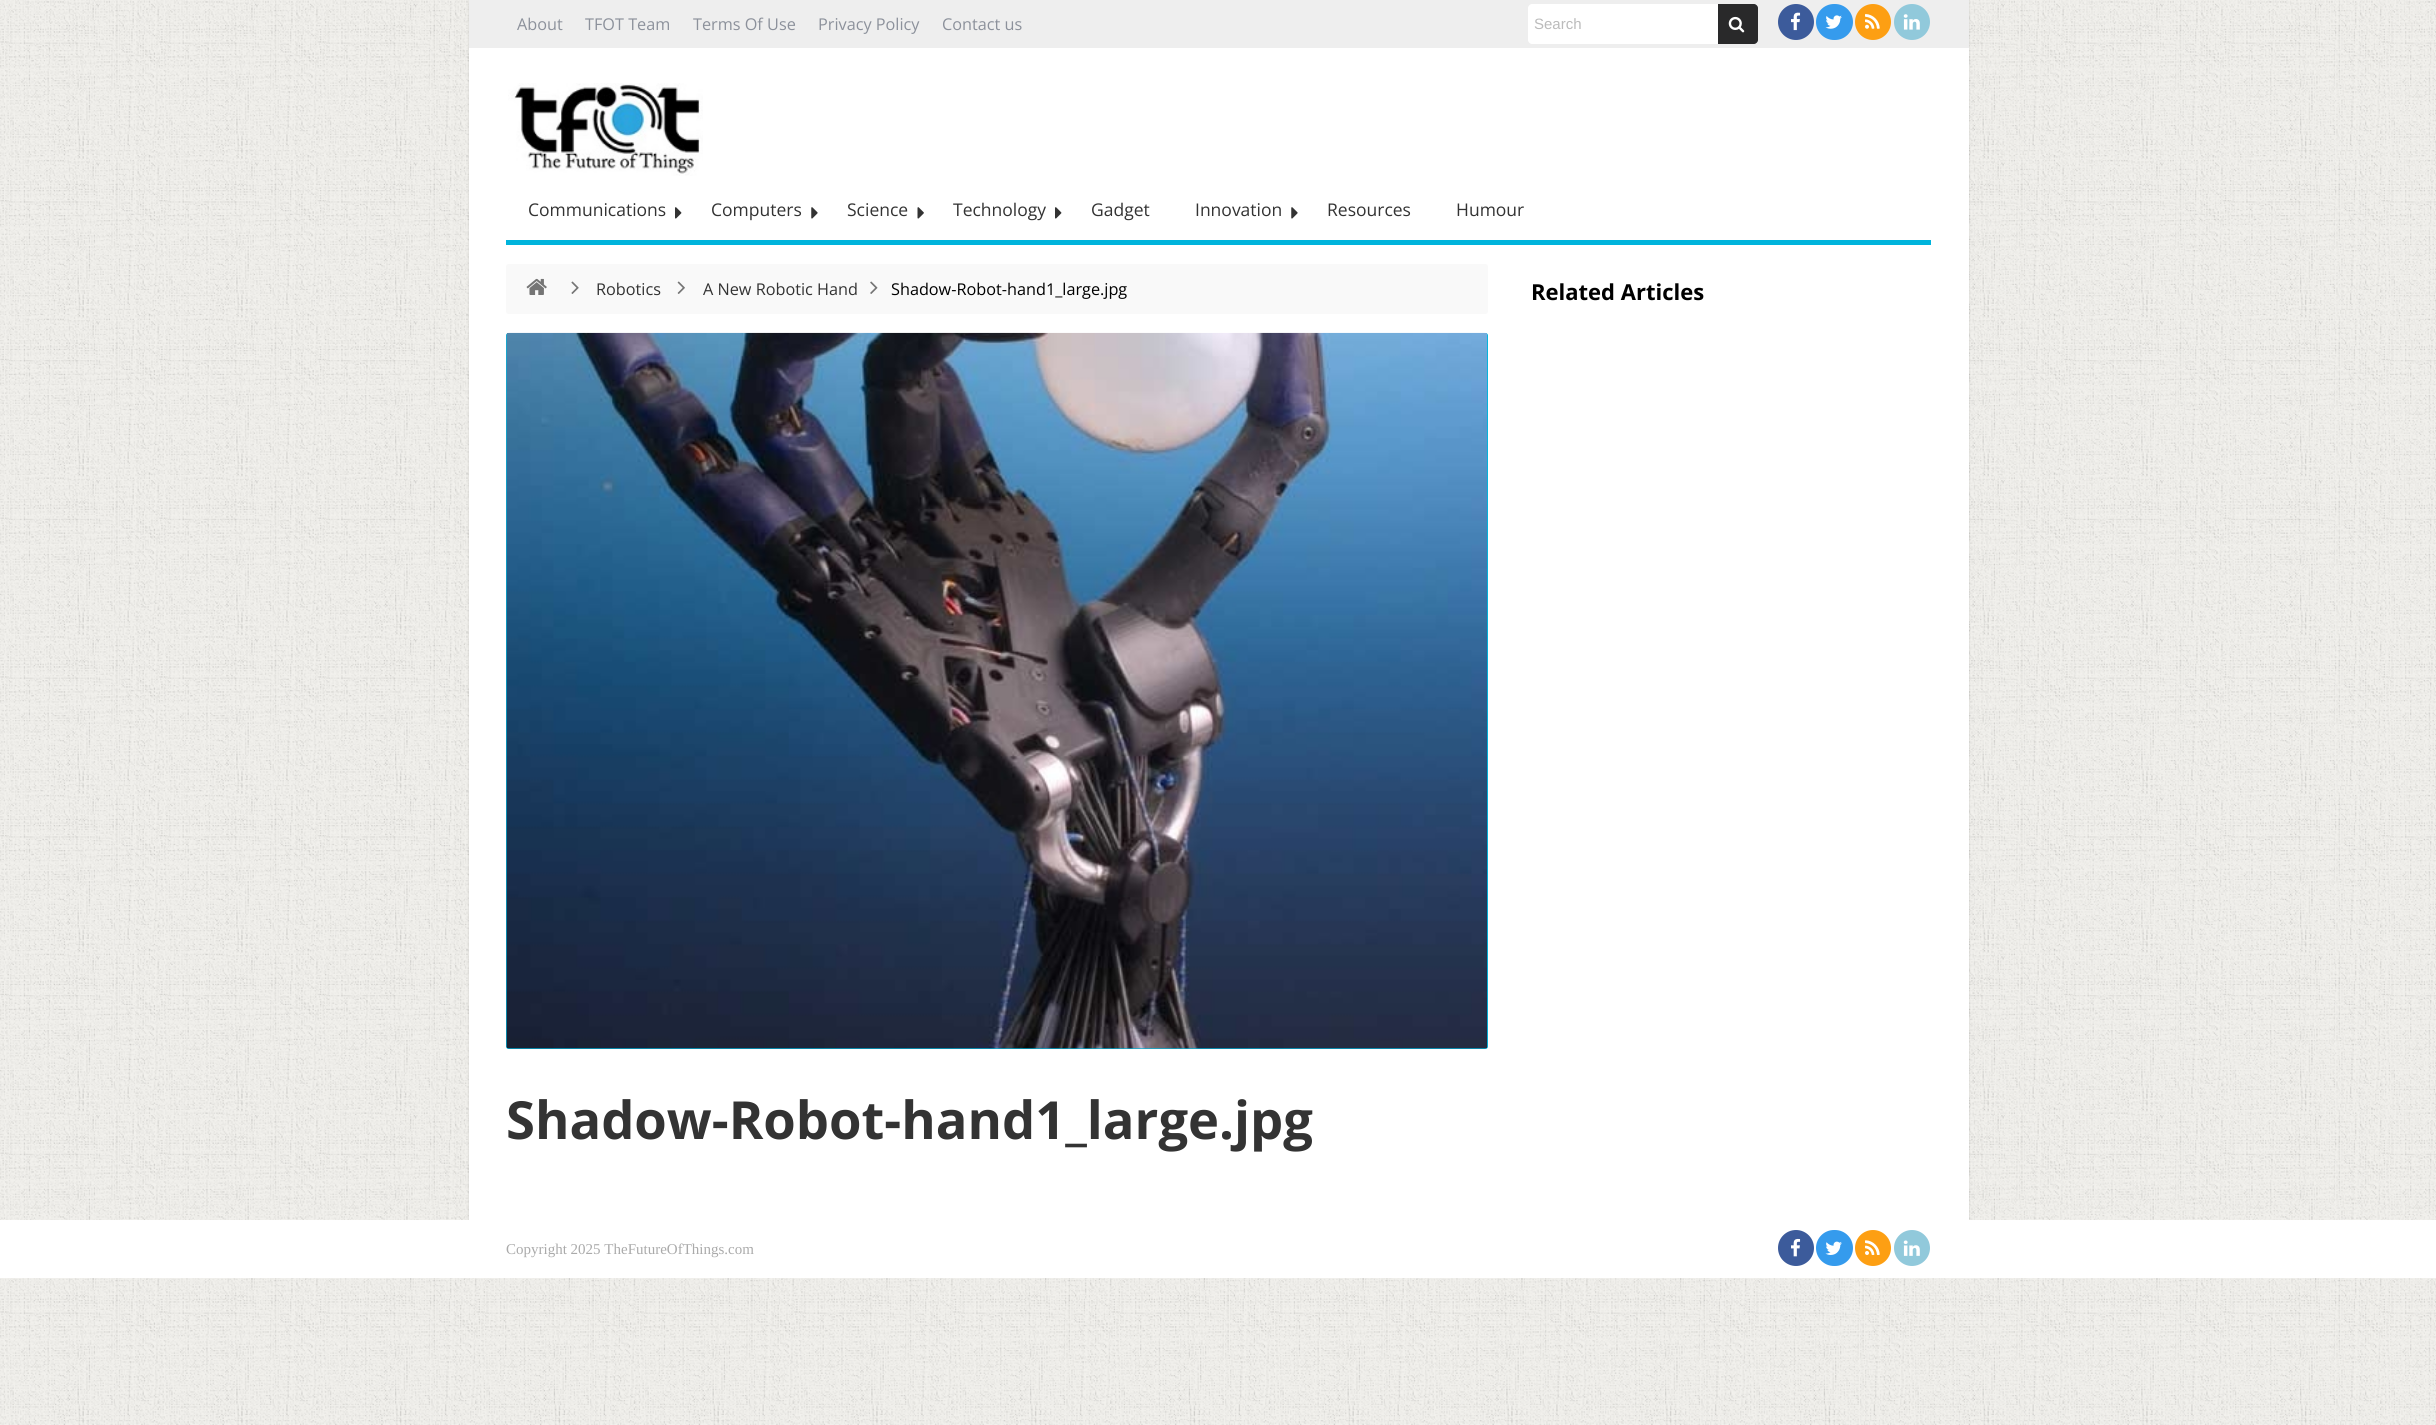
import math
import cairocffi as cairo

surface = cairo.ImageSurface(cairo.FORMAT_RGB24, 2436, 1425)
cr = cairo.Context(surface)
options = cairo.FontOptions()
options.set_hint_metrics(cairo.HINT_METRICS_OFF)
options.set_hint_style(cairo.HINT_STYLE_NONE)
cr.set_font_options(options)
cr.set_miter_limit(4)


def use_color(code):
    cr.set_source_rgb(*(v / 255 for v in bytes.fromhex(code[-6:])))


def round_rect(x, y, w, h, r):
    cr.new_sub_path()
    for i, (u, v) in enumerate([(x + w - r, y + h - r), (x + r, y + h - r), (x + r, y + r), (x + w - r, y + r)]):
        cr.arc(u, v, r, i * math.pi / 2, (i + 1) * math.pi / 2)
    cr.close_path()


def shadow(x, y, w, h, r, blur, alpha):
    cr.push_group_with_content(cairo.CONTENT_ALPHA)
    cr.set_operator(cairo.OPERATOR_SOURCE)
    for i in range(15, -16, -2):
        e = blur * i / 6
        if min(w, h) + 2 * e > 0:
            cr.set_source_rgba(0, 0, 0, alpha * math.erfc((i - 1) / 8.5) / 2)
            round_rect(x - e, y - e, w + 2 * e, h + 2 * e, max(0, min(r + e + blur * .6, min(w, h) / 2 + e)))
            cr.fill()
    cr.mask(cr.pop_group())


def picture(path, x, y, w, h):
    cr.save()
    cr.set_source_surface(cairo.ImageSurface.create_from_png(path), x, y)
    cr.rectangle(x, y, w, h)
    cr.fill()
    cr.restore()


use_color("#ffffff")
cr.paint()
picture("img1.png", 0, 0, 2436, 1425)
use_color("#000000")
shadow(469, 1, 1500, 1220, 0, 1, 0.15)
use_color("#ffffff")
cr.rectangle(469, 48, 1500, 1172)
cr.fill()
use_color("#eeeeee")
cr.rectangle(469, 0, 1500, 48)
cr.fill()
cr.select_font_face("Open Sans")
cr.set_font_size(16.25)
use_color("#8c919b")
cr.move_to(517, 30)
cr.show_text("About")
cr.move_to(585, 30)
cr.show_text("TFOT Team")
cr.move_to(693, 30)
cr.show_text("Terms Of Use")
cr.move_to(818, 30)
cr.show_text("Privacy Policy")
cr.move_to(942, 30)
cr.show_text("Contact us")
use_color("#ffffff")
cr.new_path()
cr.move_to(1532, 4)
cr.line_to(1718, 4)
cr.line_to(1718, 44)
cr.line_to(1532, 44)
cr.curve_to(1530, 44, 1528, 42, 1528, 40)
cr.line_to(1528, 8)
cr.curve_to(1528, 6, 1530, 4, 1532, 4)
cr.close_path()
cr.fill()
cr.select_font_face("Liberation Sans")
cr.set_font_size(15)
use_color("#bbbbbb")
cr.move_to(1534, 29)
cr.show_text("Search")
use_color("#29292a")
cr.new_path()
cr.move_to(1718, 4)
cr.line_to(1754, 4)
cr.curve_to(1756, 4, 1758, 6, 1758, 8)
cr.line_to(1758, 40)
cr.curve_to(1758, 42, 1756, 44, 1754, 44)
cr.line_to(1718, 44)
cr.close_path()
cr.fill()
picture("img2.png", 1728, 16, 17, 17)
use_color("#3c5b9b")
cr.arc(1796, 22, 18, 0, 2 * math.pi)
cr.fill()
picture("img3.png", 1791, 12, 10, 19)
use_color("#359bed")
round_rect(1816, 4, 37, 36, 18)
cr.fill()
picture("img4.png", 1825, 15, 17, 14)
use_color("#fd9f13")
cr.arc(1873, 22, 18, 0, 2 * math.pi)
cr.fill()
picture("img5.png", 1865, 14, 15, 15)
use_color("#91c9db")
cr.arc(1912, 22, 18, 0, 2 * math.pi)
cr.fill()
picture("img6.png", 1903, 14, 17, 16)
picture("img7.png", 508, 83, 195, 93)
use_color("#00b4dc")
cr.rectangle(506, 240, 1425, 5)
cr.fill()
cr.select_font_face("Open Sans")
cr.set_font_size(17.5)
use_color("#333333")
cr.move_to(528, 216)
cr.show_text("Communications")
picture("img8.png", 675, 207, 7, 12)
cr.move_to(711, 216)
cr.show_text("Computers")
picture("img9.png", 811, 207, 7, 12)
cr.move_to(847, 216)
cr.show_text("Science")
picture("img10.png", 917, 207, 7, 12)
cr.move_to(953, 216)
cr.show_text("Technology")
picture("img8.png", 1055, 207, 7, 12)
cr.move_to(1091, 216)
cr.show_text("Gadget")
cr.move_to(1195, 216)
cr.show_text("Innovation")
picture("img9.png", 1291, 207, 7, 12)
cr.move_to(1327, 216)
cr.show_text("Resources")
cr.move_to(1456, 216)
cr.show_text("Humour")
use_color("#f9f9f9")
round_rect(506, 264, 982, 50, 2.5)
cr.fill()
picture("img11.png", 526, 278, 21, 17)
picture("img12.png", 571, 281, 8, 13)
cr.set_font_size(16.25)
use_color("#333333")
cr.move_to(596, 295)
cr.show_text("Robotics")
picture("img13.png", 677, 281, 8, 13)
cr.move_to(703, 295)
cr.show_text("A New Robotic Hand")
picture("img14.png", 870, 281, 8, 13)
use_color("#000000")
cr.move_to(891, 295)
cr.show_text("Shadow-Robot-hand1_large.jpg")
use_color("#00b4dc")
round_rect(506, 333, 982, 716, 2.5)
cr.fill()
picture("img15.png", 506, 332, 982, 717)
cr.select_font_face("Open Sans", cairo.FONT_SLANT_NORMAL, cairo.FONT_WEIGHT_BOLD)
cr.set_font_size(52.5)
use_color("#333333")
cr.move_to(506, 1139)
cr.show_text("Shadow-Robot-hand1_large.jpg")
cr.set_font_size(22)
use_color("#000000")
cr.move_to(1531, 300)
cr.show_text("Related Articles")
use_color("#ffffff")
cr.rectangle(0, 1220, 2436, 58)
cr.fill()
cr.select_font_face("Liberation Serif")
cr.set_font_size(15)
use_color("#aaaaaa")
cr.move_to(506, 1254)
cr.show_text("Copyright 2025 TheFutureOfThings.com")
use_color("#3c5b9b")
cr.new_path()
cr.arc(1796, 1248, 18, 0, 2 * math.pi)
cr.fill()
picture("img16.png", 1791, 1238, 10, 19)
use_color("#359bed")
round_rect(1816, 1230, 37, 36, 18)
cr.fill()
picture("img17.png", 1825, 1241, 17, 14)
use_color("#fd9f13")
cr.arc(1873, 1248, 18, 0, 2 * math.pi)
cr.fill()
picture("img18.png", 1865, 1240, 15, 15)
use_color("#91c9db")
cr.arc(1912, 1248, 18, 0, 2 * math.pi)
cr.fill()
picture("img19.png", 1903, 1240, 17, 16)
surface.write_to_png("result.png")
